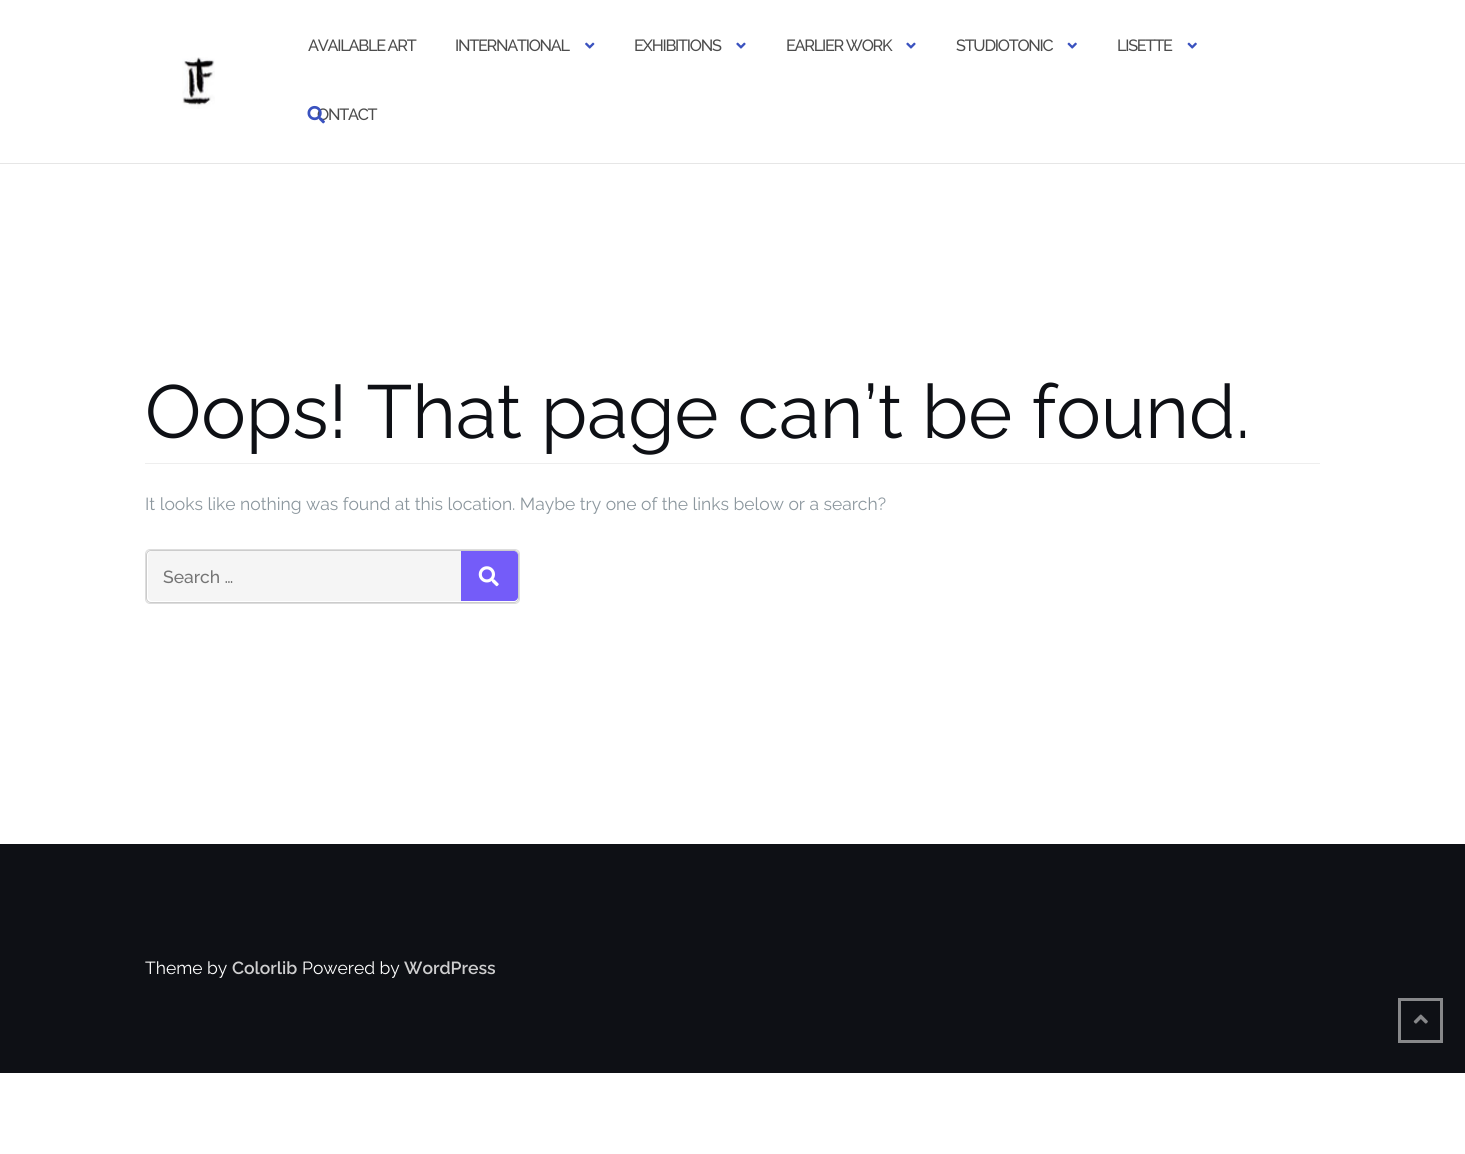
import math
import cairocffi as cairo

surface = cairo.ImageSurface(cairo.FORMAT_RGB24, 1465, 1154)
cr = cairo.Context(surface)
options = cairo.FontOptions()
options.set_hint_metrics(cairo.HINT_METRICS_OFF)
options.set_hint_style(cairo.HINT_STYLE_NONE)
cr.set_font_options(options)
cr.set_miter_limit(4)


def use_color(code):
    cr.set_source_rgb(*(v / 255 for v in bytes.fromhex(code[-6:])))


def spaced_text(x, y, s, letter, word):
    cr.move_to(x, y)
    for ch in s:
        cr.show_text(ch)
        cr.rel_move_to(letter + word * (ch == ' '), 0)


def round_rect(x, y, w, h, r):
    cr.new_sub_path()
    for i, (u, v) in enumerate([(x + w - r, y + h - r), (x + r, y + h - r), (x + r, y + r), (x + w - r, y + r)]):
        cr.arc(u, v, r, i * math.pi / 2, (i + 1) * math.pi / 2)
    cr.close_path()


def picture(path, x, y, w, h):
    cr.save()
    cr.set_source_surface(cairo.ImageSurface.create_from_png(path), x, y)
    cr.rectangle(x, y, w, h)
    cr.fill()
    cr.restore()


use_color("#ffffff")
cr.paint()
use_color("#e6e6e6")
cr.rectangle(0, 163, 1465, 1)
cr.fill()
picture("img1.png", 182, 57, 33, 52)
cr.select_font_face("Raleway Medium")
cr.set_font_size(16.25)
use_color("#4c4c4c")
spaced_text(308, 51, "AVAILABLE ART", -1.25, 0)
spaced_text(455, 51, "INTERNATIONAL", -1.25, 0)
picture("img2.png", 585, 42, 10, 7)
spaced_text(634, 51, "EXHIBITIONS", -1.25, 0)
picture("img3.png", 736, 42, 10, 7)
spaced_text(786, 51, "EARLIER WORK", -1.25, 0)
picture("img3.png", 906, 42, 10, 7)
spaced_text(956, 51, "STUDIOTONIC", -1.25, 0)
picture("img4.png", 1067, 42, 10, 7)
spaced_text(1117, 51, "LISETTE", -1.25, 0)
picture("img4.png", 1187, 42, 10, 7)
spaced_text(317, 120, "ONTACT", -1.25, 0)
picture("img5.png", 307, 105, 18, 19)
use_color("#eeeeee")
cr.rectangle(145, 463, 1175, 1)
cr.fill()
cr.select_font_face("Raleway")
cr.set_font_size(75)
use_color("#0e1015")
cr.move_to(145, 438)
cr.show_text("Oops! That page can’t be found.")
cr.set_font_size(17.5)
use_color("#8c979e")
cr.move_to(145, 510)
cr.show_text("It looks like nothing was found at this location. Maybe try one of the links below or a search?")
round_rect(145.5, 549.5, 374, 54, 4.5)
use_color("#dddddd")
cr.set_line_width(1)
cr.stroke()
round_rect(146.5, 550.5, 372, 52, 4.5)
use_color("#cccccc")
cr.stroke()
use_color("#f5f5f5")
cr.new_path()
cr.move_to(152, 551)
cr.line_to(461, 551)
cr.line_to(461, 601)
cr.line_to(152, 601)
cr.curve_to(150, 601, 148, 599, 148, 597)
cr.line_to(148, 555)
cr.curve_to(148, 553, 150, 551, 152, 551)
cr.close_path()
cr.fill()
cr.select_font_face("Raleway Medium")
use_color("#757575")
cr.move_to(163, 583)
cr.show_text("Search …")
use_color("#745cf9")
cr.new_path()
cr.move_to(461, 551)
cr.line_to(514, 551)
cr.curve_to(516, 551, 518, 553, 518, 555)
cr.line_to(518, 597)
cr.curve_to(518, 599, 516, 601, 514, 601)
cr.line_to(461, 601)
cr.close_path()
cr.fill()
picture("img6.png", 478, 566, 21, 21)
use_color("#0e1015")
cr.rectangle(0, 844, 1465, 229)
cr.fill()
cr.select_font_face("Raleway")
use_color("#ffffff")
cr.move_to(145, 974)
cr.show_text("Theme by")
cr.select_font_face("Raleway SemiBold")
use_color("#cececf")
cr.move_to(232, 974)
cr.show_text("Colorlib")
cr.select_font_face("Raleway")
use_color("#ffffff")
cr.move_to(302, 974)
cr.show_text("Powered by")
cr.select_font_face("Raleway SemiBold")
use_color("#cececf")
cr.move_to(404, 974)
cr.show_text("WordPress")
cr.rectangle(1399.5, 999.5, 42, 42)
use_color("#87888a")
cr.set_line_width(3)
cr.stroke()
picture("img7.png", 1413, 1014, 15, 10)
surface.write_to_png("result.png")
